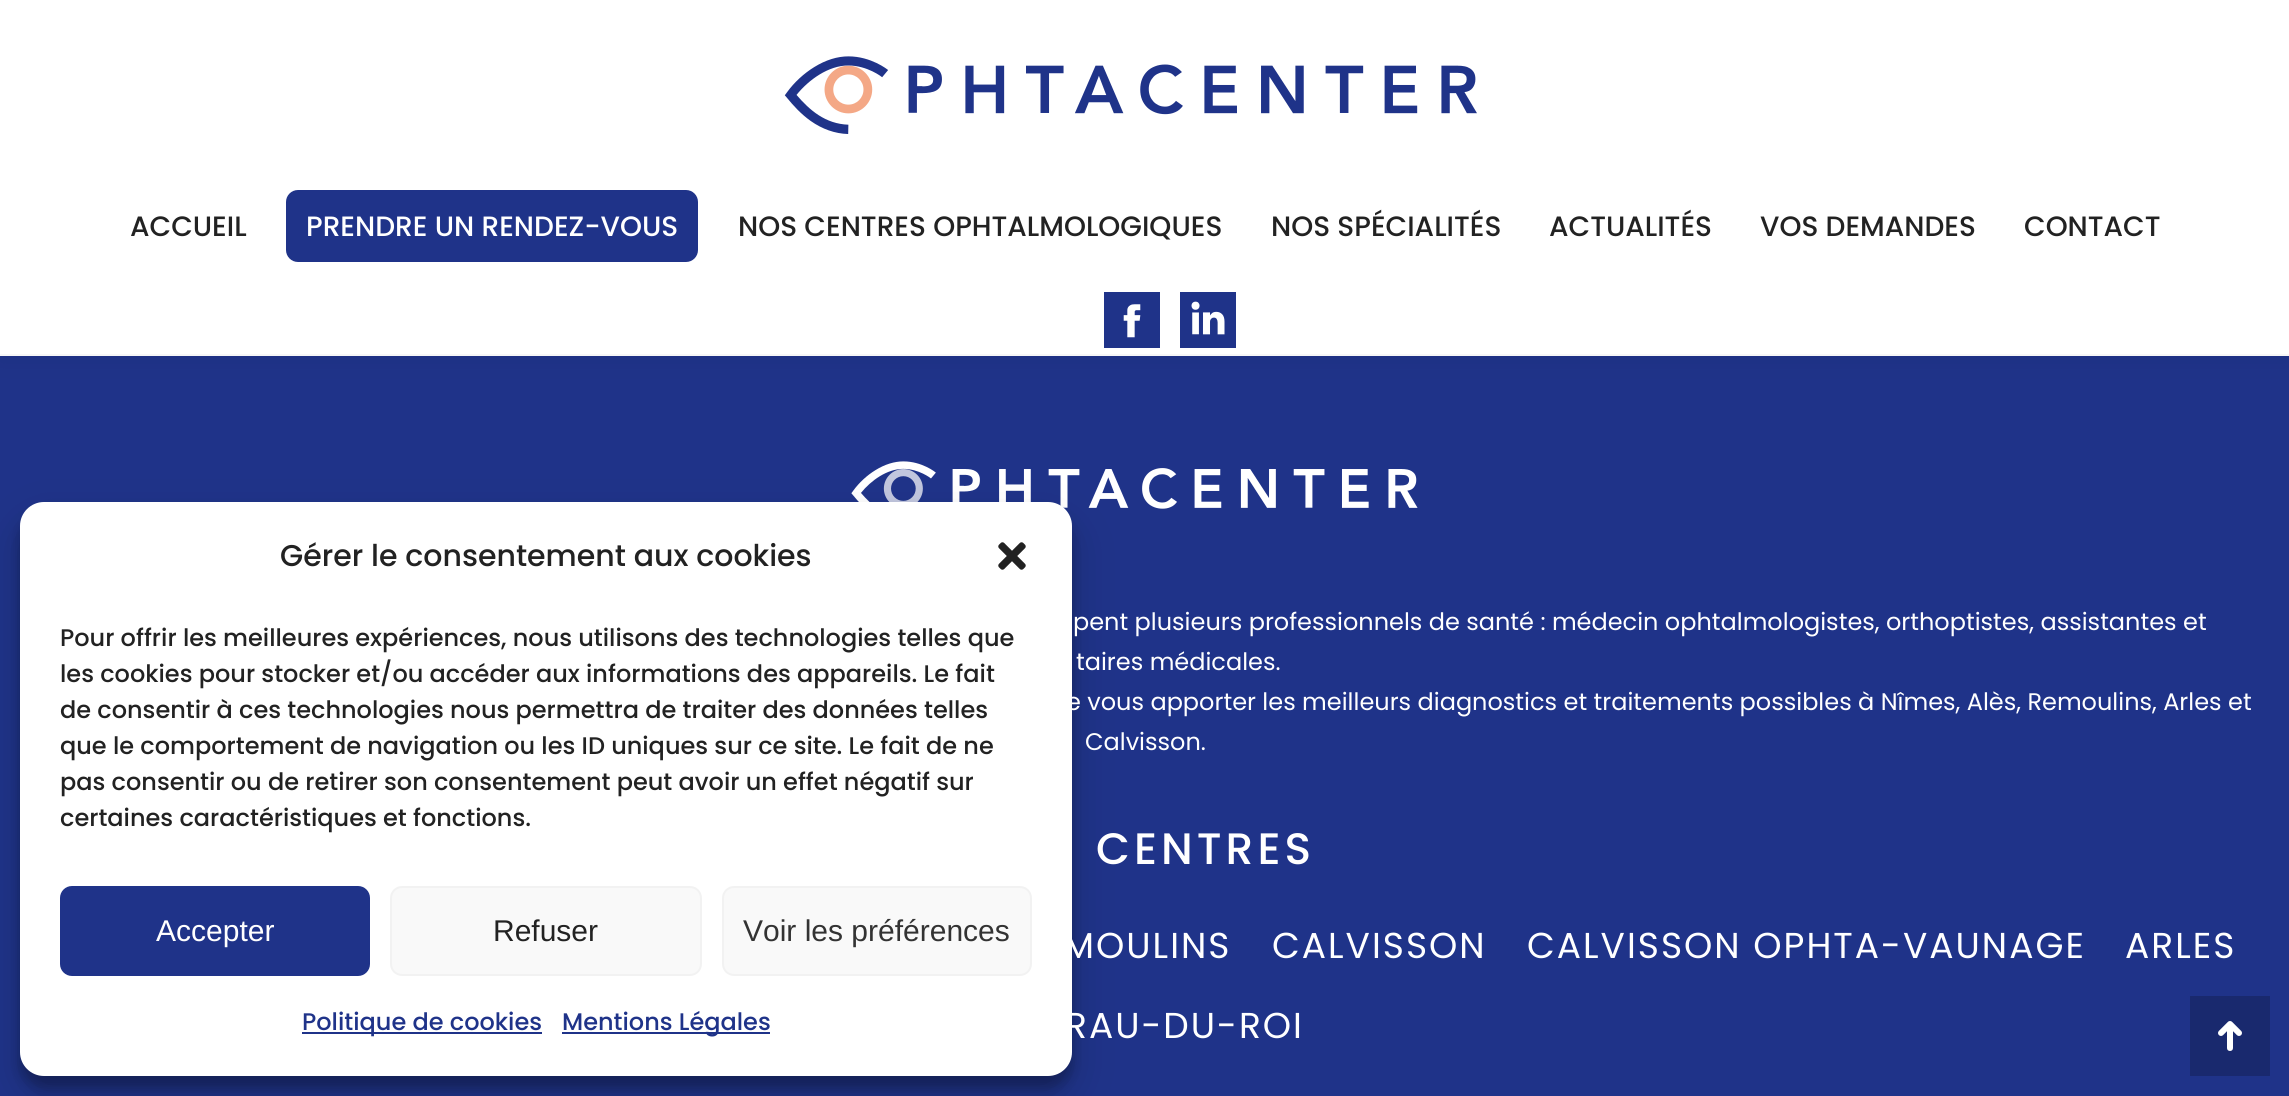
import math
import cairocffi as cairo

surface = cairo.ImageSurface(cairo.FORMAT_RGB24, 2289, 1096)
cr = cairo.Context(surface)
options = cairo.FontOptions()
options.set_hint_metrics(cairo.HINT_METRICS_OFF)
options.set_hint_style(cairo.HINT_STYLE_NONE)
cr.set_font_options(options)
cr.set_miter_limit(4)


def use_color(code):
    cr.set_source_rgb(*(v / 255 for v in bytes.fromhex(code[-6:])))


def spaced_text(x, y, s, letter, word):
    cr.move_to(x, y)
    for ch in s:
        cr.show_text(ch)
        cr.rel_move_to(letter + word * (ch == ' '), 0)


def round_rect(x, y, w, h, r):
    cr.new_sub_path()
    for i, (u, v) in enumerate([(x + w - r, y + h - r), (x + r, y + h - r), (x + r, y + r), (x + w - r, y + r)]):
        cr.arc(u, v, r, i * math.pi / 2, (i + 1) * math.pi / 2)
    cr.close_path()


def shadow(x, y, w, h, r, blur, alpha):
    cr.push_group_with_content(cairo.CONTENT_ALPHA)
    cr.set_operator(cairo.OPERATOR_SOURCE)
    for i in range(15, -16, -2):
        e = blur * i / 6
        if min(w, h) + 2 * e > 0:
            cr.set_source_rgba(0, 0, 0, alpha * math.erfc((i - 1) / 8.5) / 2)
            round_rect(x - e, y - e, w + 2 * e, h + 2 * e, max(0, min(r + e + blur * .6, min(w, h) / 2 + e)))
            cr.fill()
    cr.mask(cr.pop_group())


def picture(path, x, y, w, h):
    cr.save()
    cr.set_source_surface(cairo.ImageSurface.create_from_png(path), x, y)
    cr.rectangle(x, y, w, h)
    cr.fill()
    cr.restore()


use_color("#ffffff")
cr.paint()
use_color("#1f3389")
cr.rectangle(0, 356, 2289, 740)
cr.fill()
use_color("#000000")
shadow(-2, -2, 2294, 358, 0, 15, 0.07)
use_color("#ffffff")
cr.rectangle(0, 0, 2289, 354)
cr.fill()
picture("img1.png", 784, 56, 693, 78)
cr.select_font_face("Poppins Medium")
cr.set_font_size(28)
use_color("#222222")
cr.move_to(130, 236)
cr.show_text("ACCUEIL")
use_color("#1f3389")
round_rect(286, 190, 412, 72, 12)
cr.fill()
use_color("#ffffff")
cr.move_to(306, 236)
cr.show_text("PRENDRE UN RENDEZ-VOUS")
use_color("#222222")
cr.move_to(738, 236)
cr.show_text("NOS CENTRES OPHTALMOLOGIQUES")
cr.move_to(1271, 236)
cr.show_text("NOS SPÉCIALITÉS")
cr.move_to(1549, 236)
cr.show_text("ACTUALITÉS")
cr.move_to(1760, 236)
cr.show_text("VOS DEMANDES")
cr.move_to(2024, 236)
cr.show_text("CONTACT")
use_color("#1f3389")
cr.rectangle(1104, 292, 56, 56)
cr.fill()
picture("img2.png", 1123, 304, 18, 34)
cr.rectangle(1180, 292, 56, 56)
cr.fill()
picture("img3.png", 1191, 301, 34, 34)
picture("img5.png", 851, 461, 567, 48)
use_color("#000000")
shadow(20, 514, 1052, 574, 24, 6, 0.23)
shadow(20, 522, 1052, 574, 24, 20, 0.19)
use_color("#ffffff")
round_rect(20, 502, 1052, 574, 24)
cr.fill()
cr.set_font_size(30)
use_color("#222222")
cr.move_to(280, 566)
cr.show_text("Gérer le consentement aux cookies")
picture("img4.png", 998, 542, 28, 28)
cr.set_font_size(24)
cr.move_to(60, 646)
cr.show_text("Pour offrir les meilleures expériences, nous utilisons des technologies telles que")
cr.move_to(60, 682)
cr.show_text("les cookies pour stocker et/ou accéder aux informations des appareils. Le fait")
cr.move_to(60, 718)
cr.show_text("de consentir à ces technologies nous permettra de traiter des données telles")
cr.move_to(60, 754)
cr.show_text("que le comportement de navigation ou les ID uniques sur ce site. Le fait de ne")
cr.move_to(60, 790)
cr.show_text("pas consentir ou de retirer son consentement peut avoir un effet négatif sur")
cr.move_to(60, 826)
cr.show_text("certaines caractéristiques et fonctions.")
use_color("#1f3389")
round_rect(61, 887, 308, 88, 11)
cr.fill_preserve()
cr.stroke()
cr.select_font_face("Liberation Sans")
cr.set_font_size(30)
use_color("#ffffff")
cr.move_to(156, 941)
cr.show_text("Accepter")
use_color("#f9f9f9")
round_rect(391, 887, 310, 88, 11)
cr.fill_preserve()
use_color("#f2f2f2")
cr.stroke()
use_color("#222222")
cr.move_to(493, 941)
cr.show_text("Refuser")
use_color("#f9f9f9")
round_rect(723, 887, 308, 88, 11)
cr.fill_preserve()
use_color("#f2f2f2")
cr.stroke()
use_color("#333333")
cr.move_to(743, 941)
cr.show_text("Voir les préférences")
use_color("#1f3389")
cr.rectangle(302, 1032, 240, 2)
cr.fill()
cr.select_font_face("Poppins Medium")
cr.set_font_size(24)
cr.move_to(302, 1030)
cr.show_text("Politique de cookies")
cr.rectangle(562, 1032, 208, 2)
cr.fill()
cr.move_to(562, 1030)
cr.show_text("Mentions Légales")
cr.select_font_face("Poppins")
use_color("#ffffff")
cr.move_to(1073, 630)
cr.show_text("pent plusieurs professionnels de santé : médecin ophtalmologistes, orthoptistes, assistantes et")
cr.move_to(1076, 670)
cr.show_text("taires médicales.")
cr.move_to(1066, 710)
cr.show_text("e vous apporter les meilleurs diagnostics et traitements possibles à Nîmes, Alès, Remoulins, Arles et")
cr.move_to(1085, 750)
cr.show_text("Calvisson.")
cr.select_font_face("Poppins Medium")
cr.set_font_size(44)
spaced_text(1096, 864, "CENTRES", 4, 0)
cr.select_font_face("Poppins")
cr.set_font_size(36)
spaced_text(1063, 958, "MOULINS", 2, 0)
spaced_text(1272, 958, "CALVISSON", 2, 0)
spaced_text(1527, 958, "CALVISSON OPHTA-VAUNAGE", 2, 0)
spaced_text(2125, 958, "ARLES", 2, 0)
spaced_text(1065, 1038, "RAU-DU-ROI", 2, 0)
use_color("#19296e")
cr.rectangle(2190, 996, 80, 80)
cr.fill()
picture("img6.png", 2218, 1021, 24, 30)
surface.write_to_png("result.png")
